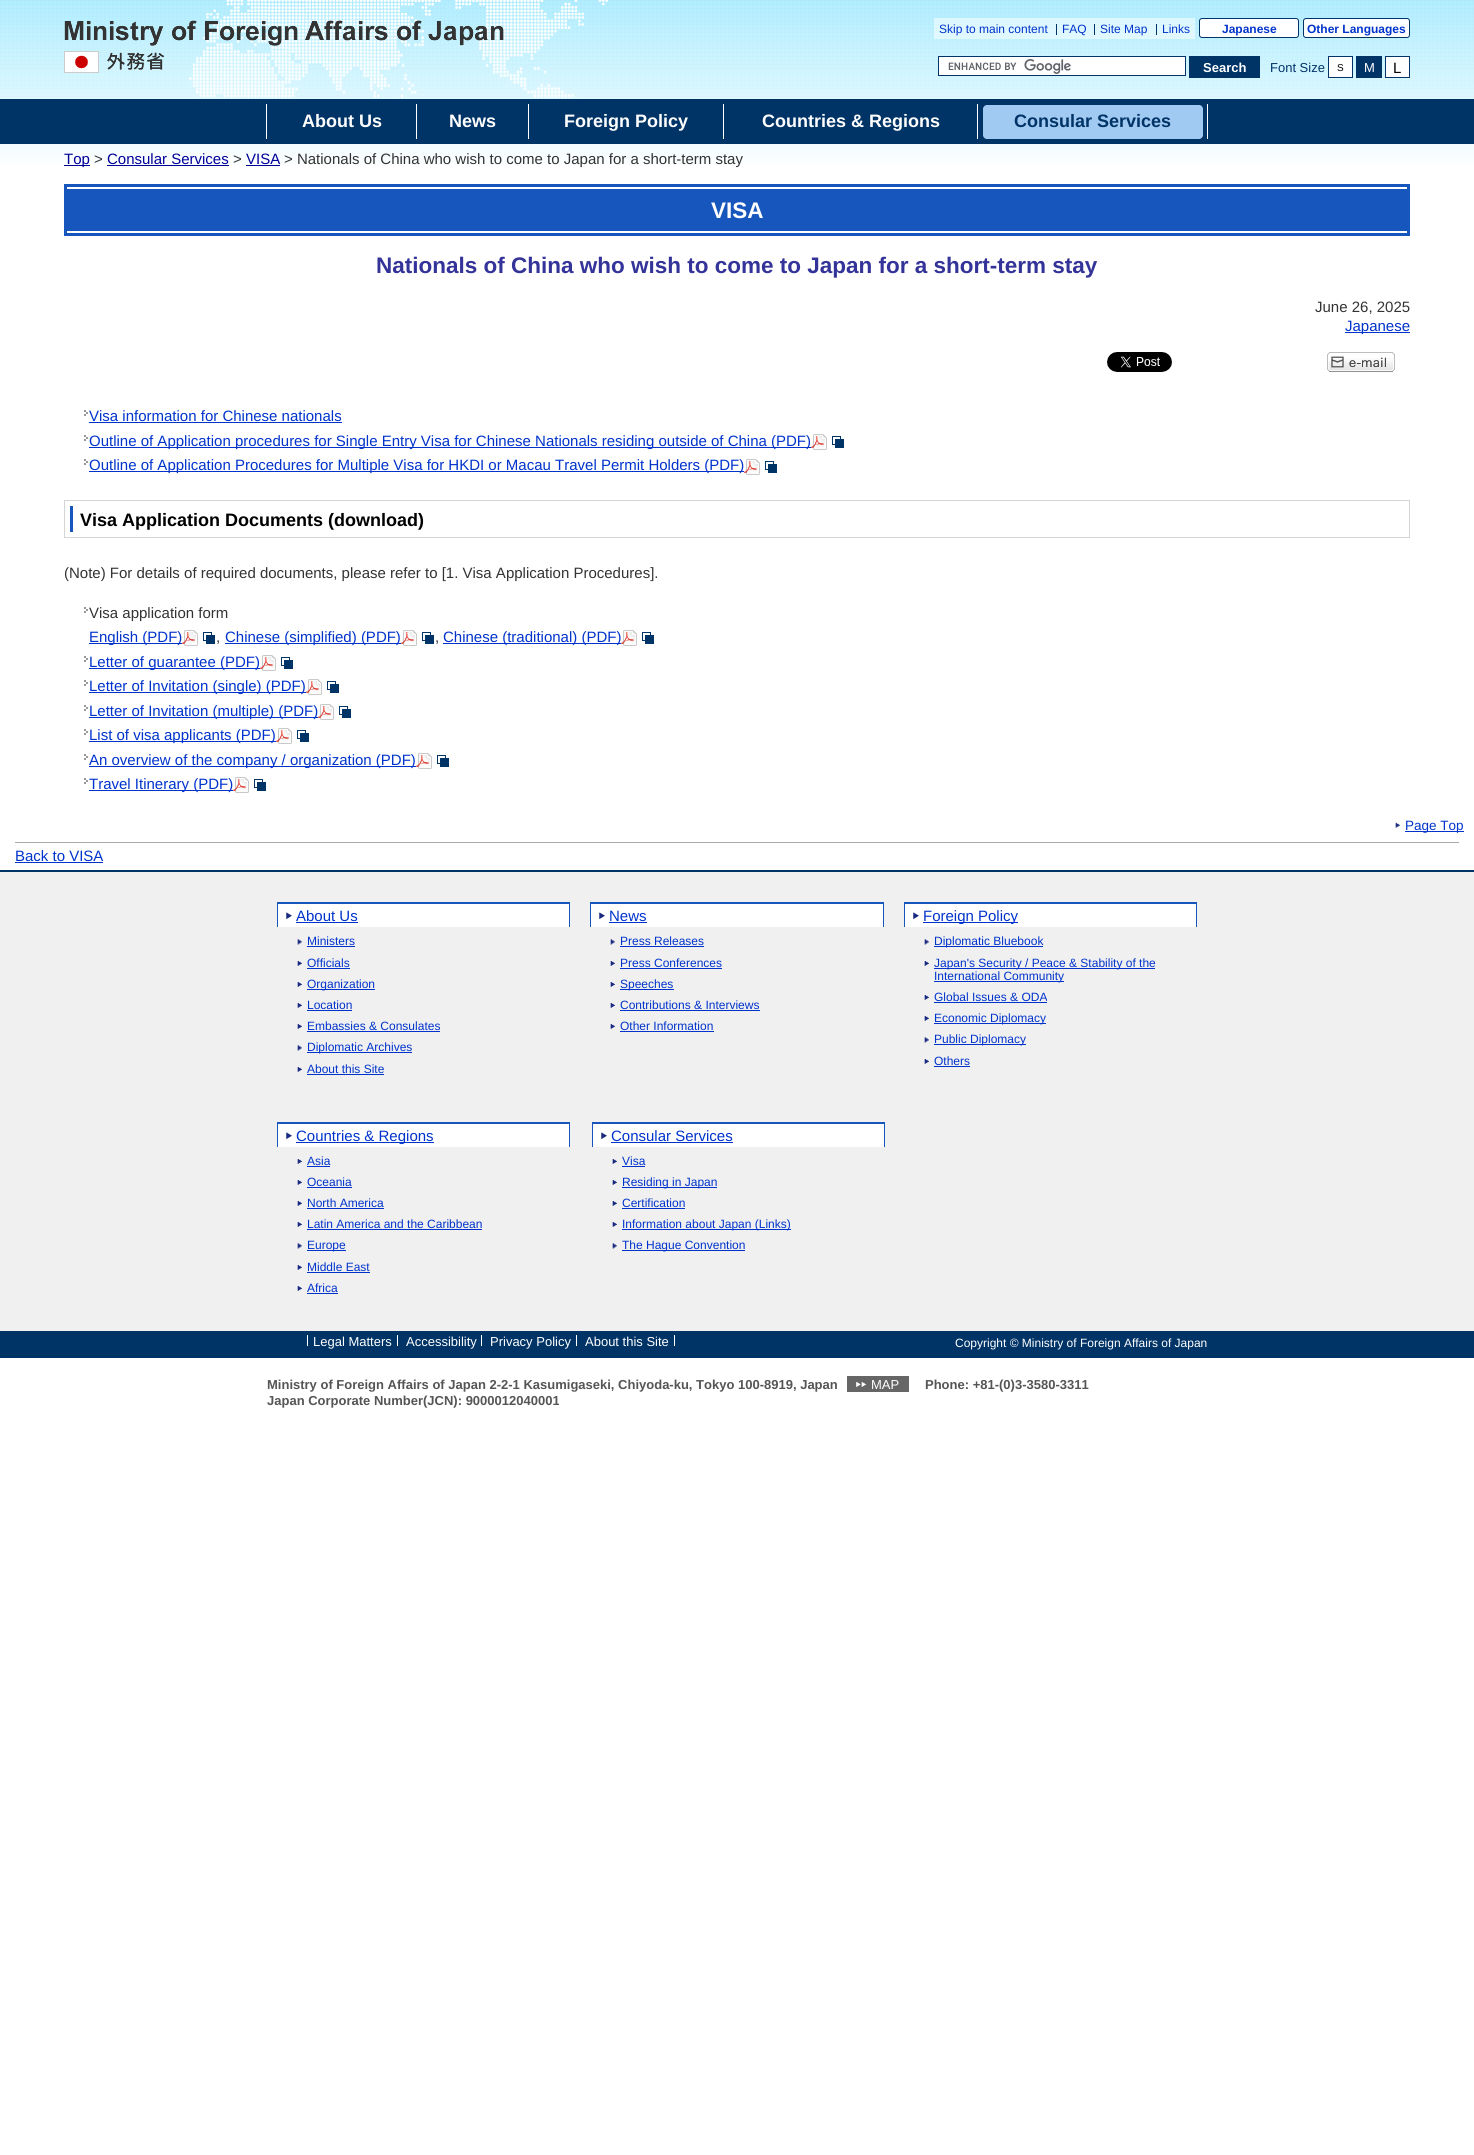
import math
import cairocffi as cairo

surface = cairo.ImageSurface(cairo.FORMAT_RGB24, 1474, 2155)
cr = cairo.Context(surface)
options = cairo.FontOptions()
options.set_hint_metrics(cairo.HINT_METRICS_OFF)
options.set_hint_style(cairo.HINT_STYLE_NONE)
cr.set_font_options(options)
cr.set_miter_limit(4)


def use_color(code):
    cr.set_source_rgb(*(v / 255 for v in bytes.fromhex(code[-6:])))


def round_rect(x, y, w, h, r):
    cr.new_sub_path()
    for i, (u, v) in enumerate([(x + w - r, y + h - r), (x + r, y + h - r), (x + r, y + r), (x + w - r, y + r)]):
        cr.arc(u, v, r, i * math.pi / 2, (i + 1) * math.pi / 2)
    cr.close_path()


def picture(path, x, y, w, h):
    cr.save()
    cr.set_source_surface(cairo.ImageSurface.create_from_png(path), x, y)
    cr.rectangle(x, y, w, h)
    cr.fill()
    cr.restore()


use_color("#ffffff")
cr.paint()
picture("img1.png", 0, 0, 1474, 165)
picture("img2.png", 189, 0, 419, 98)
picture("img3.png", 64, 20, 440, 53)
cr.set_source_rgba(1, 1, 1, 0.5)
cr.rectangle(934, 18, 261, 21)
cr.fill()
cr.select_font_face("Liberation Sans")
cr.set_font_size(12)
use_color("#0033cc")
cr.move_to(939, 33)
cr.show_text("Skip to main content")
cr.move_to(1062, 33)
cr.show_text("FAQ")
use_color("#003366")
cr.rectangle(1056, 24, 1, 11)
cr.fill()
use_color("#0033cc")
cr.move_to(1100, 33)
cr.show_text("Site Map")
use_color("#003366")
cr.rectangle(1094, 24, 1, 11)
cr.fill()
use_color("#0033cc")
cr.move_to(1162, 33)
cr.show_text("Links")
use_color("#003366")
cr.rectangle(1156, 24, 1, 11)
cr.fill()
use_color("#ffffff")
round_rect(1199.5, 18.5, 99, 19, 2.5)
cr.fill_preserve()
use_color("#003366")
cr.set_line_width(1)
cr.stroke()
cr.select_font_face("Liberation Sans", cairo.FONT_SLANT_NORMAL, cairo.FONT_WEIGHT_BOLD)
use_color("#0033cc")
cr.move_to(1222, 33)
cr.show_text("Japanese")
use_color("#ffffff")
round_rect(1303.5, 18.5, 106, 19, 2.5)
cr.fill_preserve()
use_color("#003366")
cr.stroke()
use_color("#0033cc")
cr.move_to(1307, 33)
cr.show_text("Other Languages")
use_color("#ffffff")
cr.rectangle(939, 57, 246, 18)
cr.fill()
picture("img4.png", 948, 59, 123, 15)
cr.rectangle(938.5, 56.5, 247, 19)
use_color("#003366")
cr.stroke()
cr.rectangle(1189, 56, 71, 22)
cr.fill()
cr.set_font_size(13)
use_color("#ffffff")
cr.move_to(1203, 72)
cr.show_text("Search")
cr.select_font_face("Liberation Sans")
use_color("#003366")
cr.move_to(1270, 72)
cr.show_text("Font Size")
use_color("#ffffff")
cr.rectangle(1328.5, 56.5, 24, 21)
cr.fill_preserve()
use_color("#003366")
cr.stroke()
cr.set_font_size(10)
use_color("#000000")
cr.move_to(1337, 71)
cr.show_text("S")
use_color("#003366")
cr.rectangle(1356, 56, 26, 22)
cr.fill()
cr.set_font_size(13)
use_color("#ffffff")
cr.move_to(1364, 72)
cr.show_text("M")
cr.rectangle(1385.5, 56.5, 24, 21)
cr.fill_preserve()
use_color("#003366")
cr.stroke()
cr.set_font_size(15)
use_color("#000000")
cr.move_to(1393, 73)
cr.show_text("L")
use_color("#003366")
cr.rectangle(0, 99, 1474, 45)
cr.fill()
use_color("#ffffff")
cr.rectangle(266, 104, 1, 35)
cr.fill()
cr.select_font_face("Liberation Sans", cairo.FONT_SLANT_NORMAL, cairo.FONT_WEIGHT_BOLD)
cr.set_font_size(18)
cr.move_to(302, 127)
cr.show_text("About Us")
cr.rectangle(416, 104, 1, 35)
cr.fill()
cr.move_to(449, 127)
cr.show_text("News")
cr.rectangle(528, 104, 1, 35)
cr.fill()
cr.move_to(564, 127)
cr.show_text("Foreign Policy")
cr.rectangle(723, 104, 1, 35)
cr.fill()
cr.move_to(762, 127)
cr.show_text("Countries & Regions")
cr.rectangle(977, 104, 1, 35)
cr.fill()
use_color("#a1caf2")
round_rect(983, 105, 220, 34, 4)
cr.fill()
use_color("#003366")
cr.move_to(1014, 127)
cr.show_text("Consular Services")
use_color("#ffffff")
cr.rectangle(1207, 104, 1, 35)
cr.fill()
use_color("#000099")
cr.rectangle(64, 165, 26, 1)
cr.fill()
cr.select_font_face("Liberation Sans")
cr.set_font_size(15)
cr.move_to(64, 164)
cr.show_text("Top")
use_color("#333333")
cr.move_to(94, 164)
cr.show_text(">")
use_color("#000099")
cr.move_to(107, 164)
cr.show_text("Consular Services")
cr.rectangle(107, 165, 122, 1)
cr.fill()
use_color("#333333")
cr.move_to(233, 164)
cr.show_text(">")
use_color("#000099")
cr.move_to(246, 164)
cr.show_text("VISA")
cr.rectangle(246, 165, 34, 1)
cr.fill()
use_color("#333333")
cr.move_to(284, 164)
cr.show_text("> Nationals of China who wish to come to Japan for a short-term stay")
use_color("#1756bd")
cr.rectangle(64, 184, 1346, 52)
cr.fill()
use_color("#ffffff")
cr.rectangle(67, 187, 1340, 2)
cr.fill()
cr.rectangle(67, 231, 1340, 2)
cr.fill()
cr.select_font_face("Liberation Sans", cairo.FONT_SLANT_NORMAL, cairo.FONT_WEIGHT_BOLD)
cr.set_font_size(22.5)
cr.move_to(711, 218)
cr.show_text("VISA")
use_color("#333399")
cr.move_to(376, 273)
cr.show_text("Nationals of China who wish to come to Japan for a short-term stay")
cr.select_font_face("Liberation Sans")
cr.set_font_size(15)
use_color("#333333")
cr.move_to(1315, 312)
cr.show_text("June 26, 2025")
use_color("#0033cc")
cr.rectangle(1345, 332, 65, 1)
cr.fill()
cr.move_to(1345, 331)
cr.show_text("Japanese")
picture("img5.png", 1107, 352, 65, 20)
picture("img6.png", 1327, 352, 68, 20)
picture("img7.png", 84, 410, 4, 6)
cr.move_to(89, 421)
cr.show_text("Visa information for Chinese nationals")
cr.rectangle(89, 422, 253, 1)
cr.fill()
picture("img7.png", 84, 435, 4, 6)
cr.rectangle(89, 447, 722, 1)
cr.fill()
cr.move_to(89, 446)
cr.show_text("Outline of Application procedures for Single Entry Visa for Chinese Nationals residing outside of China (PDF)")
picture("img8.png", 811, 434, 33, 16)
picture("img7.png", 84, 459, 4, 6)
cr.rectangle(89, 471, 655, 1)
cr.fill()
cr.move_to(89, 470)
cr.show_text("Outline of Application Procedures for Multiple Visa for HKDI or Macau Travel Permit Holders (PDF)")
picture("img8.png", 744, 459, 33, 16)
cr.rectangle(64.5, 500.5, 1345, 37)
use_color("#d5d5d5")
cr.stroke()
use_color("#1756bd")
cr.rectangle(70, 506, 3, 26)
cr.fill()
cr.select_font_face("Liberation Sans", cairo.FONT_SLANT_NORMAL, cairo.FONT_WEIGHT_BOLD)
cr.set_font_size(18)
use_color("#000000")
cr.move_to(80, 526)
cr.show_text("Visa Application Documents (download)")
cr.select_font_face("Liberation Sans")
cr.set_font_size(15)
use_color("#333333")
cr.move_to(64, 578)
cr.show_text("(Note) For details of required documents, please refer to [1. Visa Application Procedures].")
picture("img7.png", 84, 607, 4, 6)
cr.move_to(89, 618)
cr.show_text("Visa application form")
use_color("#0033cc")
cr.rectangle(89, 643, 93, 1)
cr.fill()
cr.move_to(89, 642)
cr.show_text("English (PDF)")
picture("img8.png", 182, 630, 33, 16)
use_color("#333333")
cr.move_to(216, 642)
cr.show_text(",")
use_color("#0033cc")
cr.rectangle(225, 643, 176, 1)
cr.fill()
cr.move_to(225, 642)
cr.show_text("Chinese (simplified) (PDF)")
picture("img8.png", 401, 630, 33, 16)
use_color("#333333")
cr.move_to(435, 642)
cr.show_text(",")
use_color("#0033cc")
cr.rectangle(443, 643, 178, 1)
cr.fill()
cr.move_to(443, 642)
cr.show_text("Chinese (traditional) (PDF)")
picture("img8.png", 621, 630, 33, 16)
picture("img7.png", 84, 656, 4, 6)
cr.rectangle(89, 668, 171, 1)
cr.fill()
cr.move_to(89, 667)
cr.show_text("Letter of guarantee (PDF)")
picture("img8.png", 260, 655, 33, 16)
picture("img7.png", 84, 680, 4, 6)
cr.rectangle(89, 692, 217, 1)
cr.fill()
cr.move_to(89, 691)
cr.show_text("Letter of Invitation (single) (PDF)")
picture("img8.png", 306, 679, 33, 16)
picture("img7.png", 84, 705, 4, 6)
cr.rectangle(89, 717, 229, 1)
cr.fill()
cr.move_to(89, 716)
cr.show_text("Letter of Invitation (multiple) (PDF)")
picture("img8.png", 318, 704, 33, 16)
picture("img7.png", 84, 729, 4, 6)
cr.rectangle(89, 741, 187, 1)
cr.fill()
cr.move_to(89, 740)
cr.show_text("List of visa applicants (PDF)")
picture("img8.png", 276, 728, 33, 16)
picture("img7.png", 84, 754, 4, 6)
cr.rectangle(89, 766, 327, 1)
cr.fill()
cr.move_to(89, 765)
cr.show_text("An overview of the company / organization (PDF)")
picture("img8.png", 416, 753, 33, 16)
picture("img7.png", 84, 778, 4, 6)
cr.rectangle(89, 790, 144, 1)
cr.fill()
cr.move_to(89, 789)
cr.show_text("Travel Itinerary (PDF)")
picture("img8.png", 233, 777, 33, 16)
picture("img9.png", 1395, 822, 5, 6)
cr.rectangle(1405, 831, 59, 1)
cr.fill()
cr.set_font_size(13.5)
cr.move_to(1405, 830)
cr.show_text("Page Top")
use_color("#aaaaaa")
cr.rectangle(15, 842, 1444, 1)
cr.fill()
cr.set_font_size(15)
use_color("#0033cc")
cr.move_to(15, 861)
cr.show_text("Back to VISA")
cr.rectangle(15, 862, 88, 1)
cr.fill()
use_color("#f0f0f0")
cr.rectangle(0, 872, 1474, 459)
cr.fill()
use_color("#003366")
cr.rectangle(0, 870, 1474, 2)
cr.fill()
use_color("#ffffff")
cr.rectangle(278, 904, 291, 23)
cr.fill()
use_color("#1756bd")
cr.rectangle(277, 902, 293, 2)
cr.fill()
cr.rectangle(569, 902, 1, 25)
cr.fill()
cr.rectangle(277, 902, 1, 25)
cr.fill()
picture("img10.png", 286, 912, 6, 7)
use_color("#0033cc")
cr.move_to(296, 921)
cr.show_text("About Us")
cr.rectangle(296, 922, 62, 1)
cr.fill()
picture("img11.png", 297, 939, 5, 6)
cr.set_font_size(12)
cr.move_to(307, 945)
cr.show_text("Ministers")
cr.rectangle(307, 946, 48, 1)
cr.fill()
picture("img12.png", 297, 961, 5, 5)
cr.move_to(307, 967)
cr.show_text("Officials")
cr.rectangle(307, 968, 43, 1)
cr.fill()
picture("img12.png", 297, 982, 5, 5)
cr.rectangle(307, 989, 68, 1)
cr.fill()
cr.move_to(307, 988)
cr.show_text("Organization")
picture("img12.png", 297, 1003, 5, 5)
cr.move_to(307, 1009)
cr.show_text("Location")
cr.rectangle(307, 1010, 45, 1)
cr.fill()
picture("img12.png", 297, 1024, 5, 5)
cr.move_to(307, 1030)
cr.show_text("Embassies & Consulates")
cr.rectangle(307, 1031, 133, 1)
cr.fill()
picture("img11.png", 297, 1045, 5, 6)
cr.rectangle(307, 1052, 105, 1)
cr.fill()
cr.move_to(307, 1051)
cr.show_text("Diplomatic Archives")
picture("img12.png", 297, 1067, 5, 5)
cr.move_to(307, 1073)
cr.show_text("About this Site")
cr.rectangle(307, 1074, 77, 1)
cr.fill()
use_color("#ffffff")
cr.rectangle(591, 904, 292, 23)
cr.fill()
use_color("#1756bd")
cr.rectangle(590, 902, 294, 2)
cr.fill()
cr.rectangle(883, 902, 1, 25)
cr.fill()
cr.rectangle(590, 902, 1, 25)
cr.fill()
picture("img10.png", 599, 912, 6, 7)
cr.set_font_size(15)
use_color("#0033cc")
cr.move_to(609, 921)
cr.show_text("News")
cr.rectangle(609, 922, 38, 1)
cr.fill()
picture("img11.png", 610, 939, 5, 6)
cr.set_font_size(12)
cr.move_to(620, 945)
cr.show_text("Press Releases")
cr.rectangle(620, 946, 84, 1)
cr.fill()
picture("img12.png", 610, 961, 5, 5)
cr.move_to(620, 967)
cr.show_text("Press Conferences")
cr.rectangle(620, 968, 102, 1)
cr.fill()
picture("img12.png", 610, 982, 5, 5)
cr.rectangle(620, 989, 54, 1)
cr.fill()
cr.move_to(620, 988)
cr.show_text("Speeches")
picture("img12.png", 610, 1003, 5, 5)
cr.move_to(620, 1009)
cr.show_text("Contributions & Interviews")
cr.rectangle(620, 1010, 140, 1)
cr.fill()
picture("img12.png", 610, 1024, 5, 5)
cr.move_to(620, 1030)
cr.show_text("Other Information")
cr.rectangle(620, 1031, 94, 1)
cr.fill()
use_color("#ffffff")
cr.rectangle(905, 904, 291, 23)
cr.fill()
use_color("#1756bd")
cr.rectangle(904, 902, 293, 2)
cr.fill()
cr.rectangle(1196, 902, 1, 25)
cr.fill()
cr.rectangle(904, 902, 1, 25)
cr.fill()
picture("img10.png", 913, 912, 6, 7)
use_color("#0033cc")
cr.rectangle(923, 922, 95, 1)
cr.fill()
cr.set_font_size(15)
cr.move_to(923, 921)
cr.show_text("Foreign Policy")
picture("img11.png", 924, 939, 5, 6)
cr.rectangle(934, 946, 109, 1)
cr.fill()
cr.set_font_size(12)
cr.move_to(934, 945)
cr.show_text("Diplomatic Bluebook")
picture("img12.png", 924, 961, 5, 5)
cr.rectangle(934, 968, 221, 1)
cr.fill()
cr.move_to(934, 967)
cr.show_text("Japan's Security / Peace & Stability of the")
cr.rectangle(934, 981, 130, 1)
cr.fill()
cr.move_to(934, 980)
cr.show_text("International Community")
picture("img12.png", 924, 995, 5, 5)
cr.move_to(934, 1001)
cr.show_text("Global Issues & ODA")
cr.rectangle(934, 1002, 113, 1)
cr.fill()
picture("img12.png", 924, 1016, 5, 5)
cr.rectangle(934, 1023, 112, 1)
cr.fill()
cr.move_to(934, 1022)
cr.show_text("Economic Diplomacy")
picture("img11.png", 924, 1037, 5, 6)
cr.rectangle(934, 1044, 92, 1)
cr.fill()
cr.move_to(934, 1043)
cr.show_text("Public Diplomacy")
picture("img12.png", 924, 1059, 5, 5)
cr.move_to(934, 1065)
cr.show_text("Others")
cr.rectangle(934, 1066, 36, 1)
cr.fill()
use_color("#ffffff")
cr.rectangle(278, 1124, 291, 23)
cr.fill()
use_color("#1756bd")
cr.rectangle(277, 1122, 293, 2)
cr.fill()
cr.rectangle(569, 1122, 1, 25)
cr.fill()
cr.rectangle(277, 1122, 1, 25)
cr.fill()
picture("img10.png", 286, 1132, 6, 7)
use_color("#0033cc")
cr.rectangle(296, 1142, 138, 1)
cr.fill()
cr.set_font_size(15)
cr.move_to(296, 1141)
cr.show_text("Countries & Regions")
picture("img12.png", 297, 1159, 5, 5)
cr.set_font_size(12)
cr.move_to(307, 1165)
cr.show_text("Asia")
cr.rectangle(307, 1166, 23, 1)
cr.fill()
picture("img12.png", 297, 1180, 5, 5)
cr.move_to(307, 1186)
cr.show_text("Oceania")
cr.rectangle(307, 1187, 45, 1)
cr.fill()
picture("img12.png", 297, 1201, 5, 5)
cr.move_to(307, 1207)
cr.show_text("North America")
cr.rectangle(307, 1208, 77, 1)
cr.fill()
picture("img12.png", 297, 1222, 5, 5)
cr.move_to(307, 1228)
cr.show_text("Latin America and the Caribbean")
cr.rectangle(307, 1229, 175, 1)
cr.fill()
picture("img11.png", 297, 1243, 5, 6)
cr.rectangle(307, 1250, 39, 1)
cr.fill()
cr.move_to(307, 1249)
cr.show_text("Europe")
picture("img12.png", 297, 1265, 5, 5)
cr.move_to(307, 1271)
cr.show_text("Middle East")
cr.rectangle(307, 1272, 63, 1)
cr.fill()
picture("img12.png", 297, 1286, 5, 5)
cr.move_to(307, 1292)
cr.show_text("Africa")
cr.rectangle(307, 1293, 31, 1)
cr.fill()
use_color("#ffffff")
cr.rectangle(593, 1124, 291, 23)
cr.fill()
use_color("#1756bd")
cr.rectangle(592, 1122, 293, 2)
cr.fill()
cr.rectangle(884, 1122, 1, 25)
cr.fill()
cr.rectangle(592, 1122, 1, 25)
cr.fill()
picture("img10.png", 601, 1132, 6, 7)
cr.set_font_size(15)
use_color("#0033cc")
cr.move_to(611, 1141)
cr.show_text("Consular Services")
cr.rectangle(611, 1142, 122, 1)
cr.fill()
picture("img12.png", 612, 1159, 5, 5)
cr.set_font_size(12)
cr.move_to(622, 1165)
cr.show_text("Visa")
cr.rectangle(622, 1166, 23, 1)
cr.fill()
picture("img12.png", 612, 1180, 5, 5)
cr.rectangle(622, 1187, 95, 1)
cr.fill()
cr.move_to(622, 1186)
cr.show_text("Residing in Japan")
picture("img12.png", 612, 1201, 5, 5)
cr.move_to(622, 1207)
cr.show_text("Certification")
cr.rectangle(622, 1208, 63, 1)
cr.fill()
picture("img12.png", 612, 1222, 5, 5)
cr.rectangle(622, 1229, 169, 1)
cr.fill()
cr.move_to(622, 1228)
cr.show_text("Information about Japan (Links)")
picture("img11.png", 612, 1243, 5, 6)
cr.rectangle(622, 1250, 123, 1)
cr.fill()
cr.move_to(622, 1249)
cr.show_text("The Hague Convention")
use_color("#003366")
cr.rectangle(0, 1331, 1474, 27)
cr.fill()
cr.set_font_size(13)
use_color("#ffffff")
cr.move_to(313, 1346)
cr.show_text("Legal Matters")
cr.rectangle(397, 1335, 1, 11)
cr.fill()
cr.rectangle(307, 1335, 1, 11)
cr.fill()
cr.move_to(406, 1346)
cr.show_text("Accessibility")
cr.rectangle(481, 1335, 1, 11)
cr.fill()
cr.move_to(490, 1346)
cr.show_text("Privacy Policy")
cr.rectangle(576, 1335, 1, 11)
cr.fill()
cr.move_to(585, 1346)
cr.show_text("About this Site")
cr.rectangle(674, 1335, 1, 11)
cr.fill()
cr.set_font_size(12)
cr.move_to(955, 1347)
cr.show_text("Copyright © Ministry of Foreign Affairs of Japan")
cr.select_font_face("Liberation Sans", cairo.FONT_SLANT_NORMAL, cairo.FONT_WEIGHT_BOLD)
cr.set_font_size(13)
use_color("#555555")
cr.move_to(267, 1389)
cr.show_text("Ministry of Foreign Affairs of Japan 2-2-1 Kasumigaseki, Chiyoda-ku, Tokyo 100-8919, Japan")
use_color("#666666")
cr.rectangle(847, 1376, 62, 16)
cr.fill()
picture("img13.png", 856, 1382, 10, 5)
cr.select_font_face("Liberation Sans")
use_color("#ffffff")
cr.move_to(871, 1389)
cr.show_text("MAP")
cr.select_font_face("Liberation Sans", cairo.FONT_SLANT_NORMAL, cairo.FONT_WEIGHT_BOLD)
use_color("#555555")
cr.move_to(925, 1389)
cr.show_text("Phone: +81-(0)3-3580-3311")
cr.move_to(267, 1405)
cr.show_text("Japan Corporate Number(JCN): 9000012040001")
surface.write_to_png("result.png")
